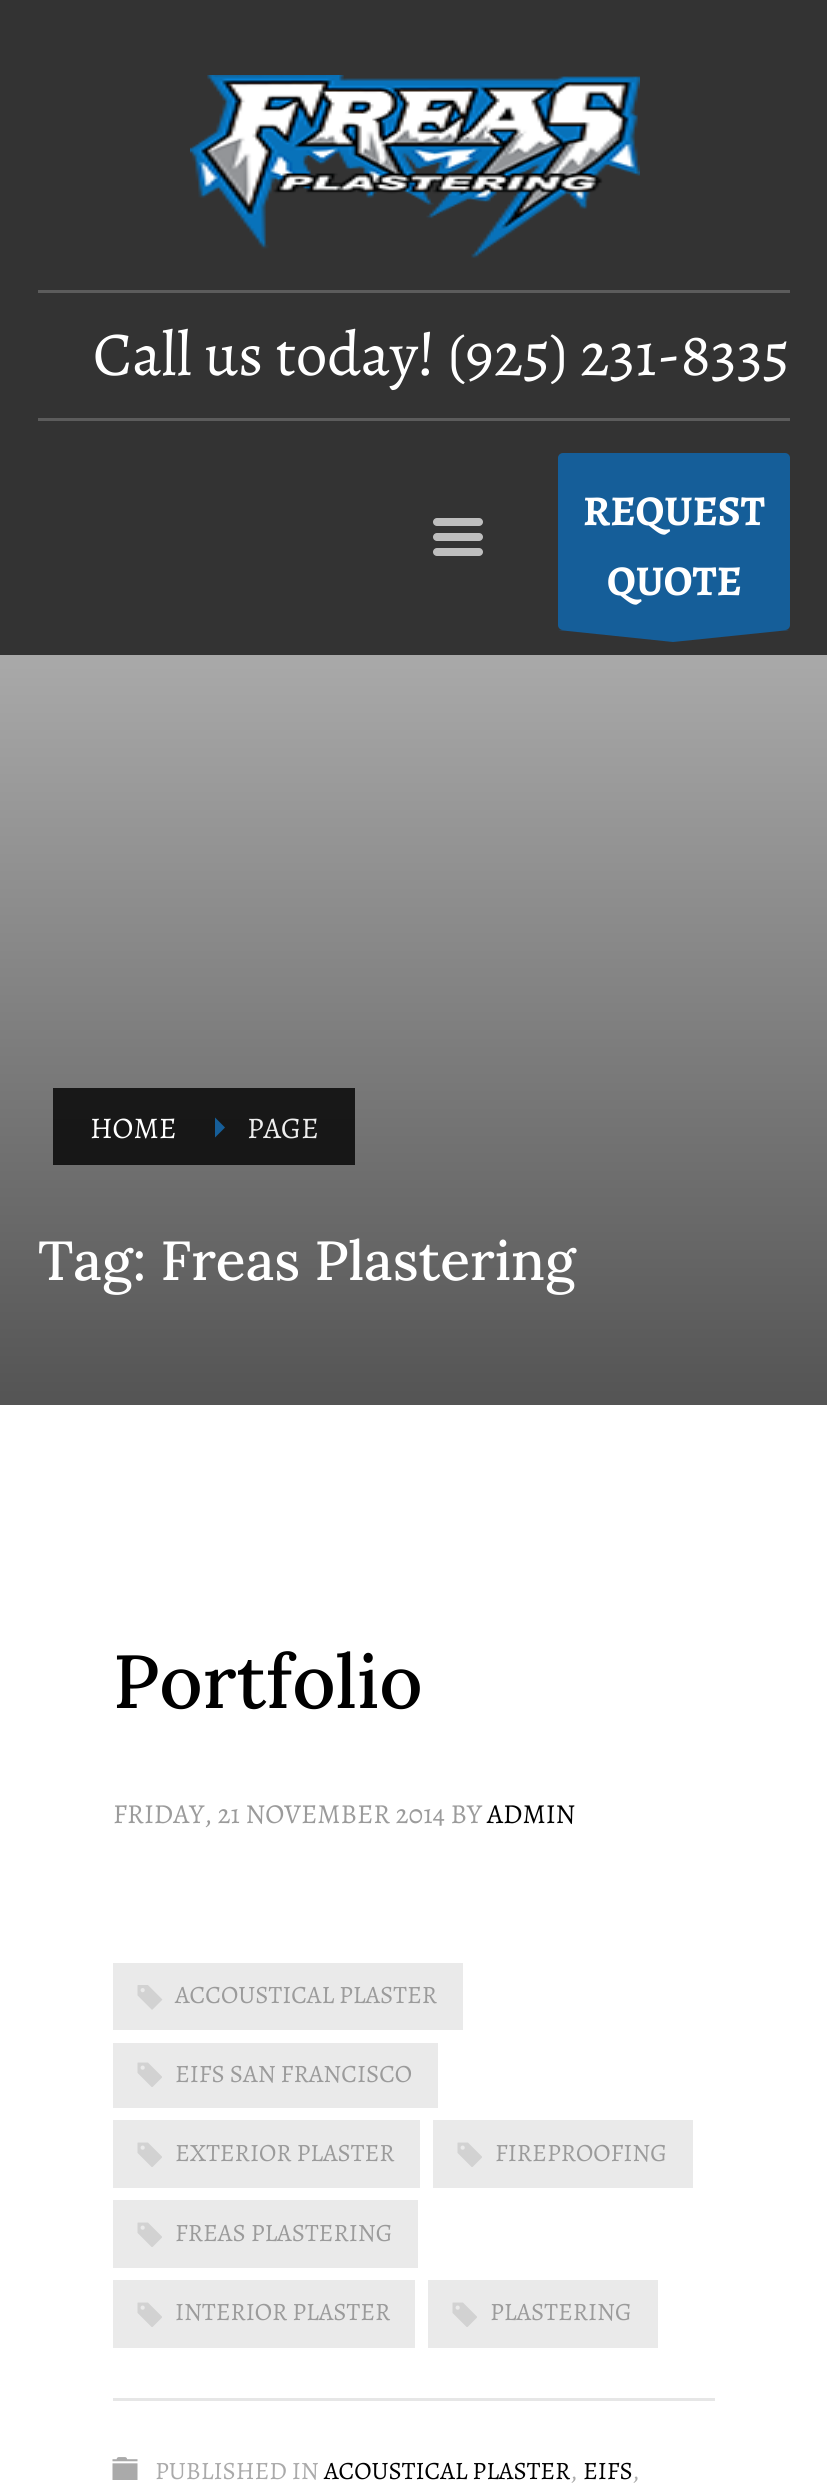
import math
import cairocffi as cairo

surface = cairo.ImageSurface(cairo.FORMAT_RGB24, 827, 2492)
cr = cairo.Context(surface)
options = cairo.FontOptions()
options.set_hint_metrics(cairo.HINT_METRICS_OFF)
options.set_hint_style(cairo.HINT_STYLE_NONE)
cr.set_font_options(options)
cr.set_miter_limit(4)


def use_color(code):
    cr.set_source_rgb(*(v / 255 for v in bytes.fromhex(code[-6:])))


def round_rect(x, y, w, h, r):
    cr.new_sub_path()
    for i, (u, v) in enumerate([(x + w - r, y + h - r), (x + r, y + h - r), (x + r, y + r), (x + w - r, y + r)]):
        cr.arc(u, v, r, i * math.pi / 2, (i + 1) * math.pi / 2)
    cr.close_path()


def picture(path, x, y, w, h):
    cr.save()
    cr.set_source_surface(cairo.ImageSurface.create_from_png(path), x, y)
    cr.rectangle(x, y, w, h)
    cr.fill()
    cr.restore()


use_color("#ffffff")
cr.paint()
use_color("#333333")
cr.rectangle(0, 0, 827, 655)
cr.fill()
picture("img1.png", 190, 75, 450, 183)
use_color("#5c5c5c")
cr.rectangle(38, 290, 752, 3)
cr.fill()
cr.select_font_face("Alegreya")
cr.set_font_size(62.5)
use_color("#ffffff")
cr.move_to(93, 375)
cr.show_text("Call us today! (925) 231-8335")
use_color("#5c5c5c")
cr.rectangle(38, 418, 752, 3)
cr.fill()
use_color("#bebebe")
round_rect(433, 518, 50, 8, 4)
cr.fill()
round_rect(433, 533, 50, 8, 4)
cr.fill()
round_rect(433, 548, 50, 8, 4)
cr.fill()
use_color("#155e99")
round_rect(558, 453, 232, 177, 5)
cr.fill()
cr.select_font_face("Alegreya", cairo.FONT_SLANT_NORMAL, cairo.FONT_WEIGHT_BOLD)
cr.set_font_size(42.5)
use_color("#ffffff")
cr.move_to(583, 525)
cr.show_text("REQUEST")
cr.move_to(607, 595)
cr.show_text("QUOTE")
use_color("#155e99")
cr.set_fill_rule(cairo.FILL_RULE_EVEN_ODD)
cr.new_path()
cr.move_to(789, 630)
cr.line_to(673, 642)
cr.line_to(558, 630)
cr.close_path()
cr.fill()
gradient = cairo.LinearGradient(414, 655, 414, 1405)
gradient.add_color_stop_rgba(0, 0.663, 0.663, 0.663, 1)
gradient.add_color_stop_rgba(1, 0.329, 0.329, 0.329, 1)
cr.set_source(gradient)
cr.rectangle(0, 655, 827, 750)
cr.fill()
gradient = cairo.LinearGradient(414, 655, 414, 1405)
gradient.add_color_stop_rgba(0, 0.133, 0.133, 0.133, 1)
gradient.add_color_stop_rgba(1, 0.067, 0.067, 0.067, 1)
cr.set_source(gradient)
cr.rectangle(190, 1088, 165, 77)
cr.fill()
cr.rectangle(53, 1088, 137, 77)
cr.fill()
cr.select_font_face("Alegreya")
cr.set_font_size(30)
use_color("#ffffff")
cr.move_to(90, 1138)
cr.show_text("HOME")
use_color("#165e99")
cr.set_fill_rule(cairo.FILL_RULE_WINDING)
cr.new_path()
cr.move_to(215, 1137.5)
cr.line_to(215, 1117.5)
cr.line_to(225, 1127.5)
cr.close_path()
cr.fill()
use_color("#eeeeee")
cr.move_to(247, 1138)
cr.show_text("PAGE")
cr.select_font_face("Lora Medium")
cr.set_font_size(55)
use_color("#ffffff")
cr.move_to(38, 1280)
cr.show_text("Tag: Freas Plastering")
cr.set_font_size(75)
use_color("#000000")
cr.move_to(113, 1708)
cr.show_text("Portfolio")
cr.select_font_face("Alegreya")
cr.set_font_size(27.5)
use_color("#9b9b9b")
cr.move_to(113, 1823)
cr.show_text("FRIDAY, 21 NOVEMBER 2014 BY")
use_color("#000000")
cr.move_to(487, 1823)
cr.show_text("ADMIN")
use_color("#e6e6e6")
cr.rectangle(113, 2398, 602, 3)
cr.fill()
use_color("#eaeaea")
cr.rectangle(113, 1963, 350, 67)
cr.fill()
picture("img2.png", 137, 1985, 26, 25)
cr.set_font_size(25)
use_color("#9b9b9b")
cr.move_to(175, 2003)
cr.show_text("ACCOUSTICAL PLASTER")
use_color("#eaeaea")
cr.rectangle(113, 2043, 325, 65)
cr.fill()
picture("img3.png", 137, 2062, 25, 25)
use_color("#9b9b9b")
cr.move_to(175, 2082)
cr.show_text("EIFS SAN FRANCISCO")
use_color("#eaeaea")
cr.rectangle(113, 2120, 307, 68)
cr.fill()
picture("img3.png", 137, 2142, 25, 25)
use_color("#9b9b9b")
cr.move_to(175, 2161)
cr.show_text("EXTERIOR PLASTER")
use_color("#eaeaea")
cr.rectangle(433, 2120, 260, 68)
cr.fill()
picture("img3.png", 457, 2142, 25, 25)
use_color("#9b9b9b")
cr.move_to(495, 2161)
cr.show_text("FIREPROOFING")
use_color("#eaeaea")
cr.rectangle(113, 2200, 305, 68)
cr.fill()
picture("img3.png", 137, 2222, 25, 25)
use_color("#9b9b9b")
cr.move_to(175, 2241)
cr.show_text("FREAS PLASTERING")
use_color("#eaeaea")
cr.rectangle(113, 2280, 302, 68)
cr.fill()
picture("img3.png", 137, 2302, 25, 25)
use_color("#9b9b9b")
cr.move_to(175, 2320)
cr.show_text("INTERIOR PLASTER")
use_color("#eaeaea")
cr.rectangle(428, 2280, 230, 68)
cr.fill()
picture("img3.png", 452, 2302, 25, 25)
use_color("#9b9b9b")
cr.move_to(490, 2320)
cr.show_text("PLASTERING")
picture("img4.png", 112, 2457, 26, 23)
use_color("#aaaaaa")
cr.move_to(155, 2479)
cr.show_text("PUBLISHED IN")
use_color("#000000")
cr.move_to(324, 2479)
cr.show_text("ACOUSTICAL PLASTER")
use_color("#aaaaaa")
cr.move_to(570, 2479)
cr.show_text(",")
use_color("#000000")
cr.move_to(583, 2479)
cr.show_text("EIFS")
use_color("#aaaaaa")
cr.move_to(632, 2479)
cr.show_text(",")
surface.write_to_png("result.png")
